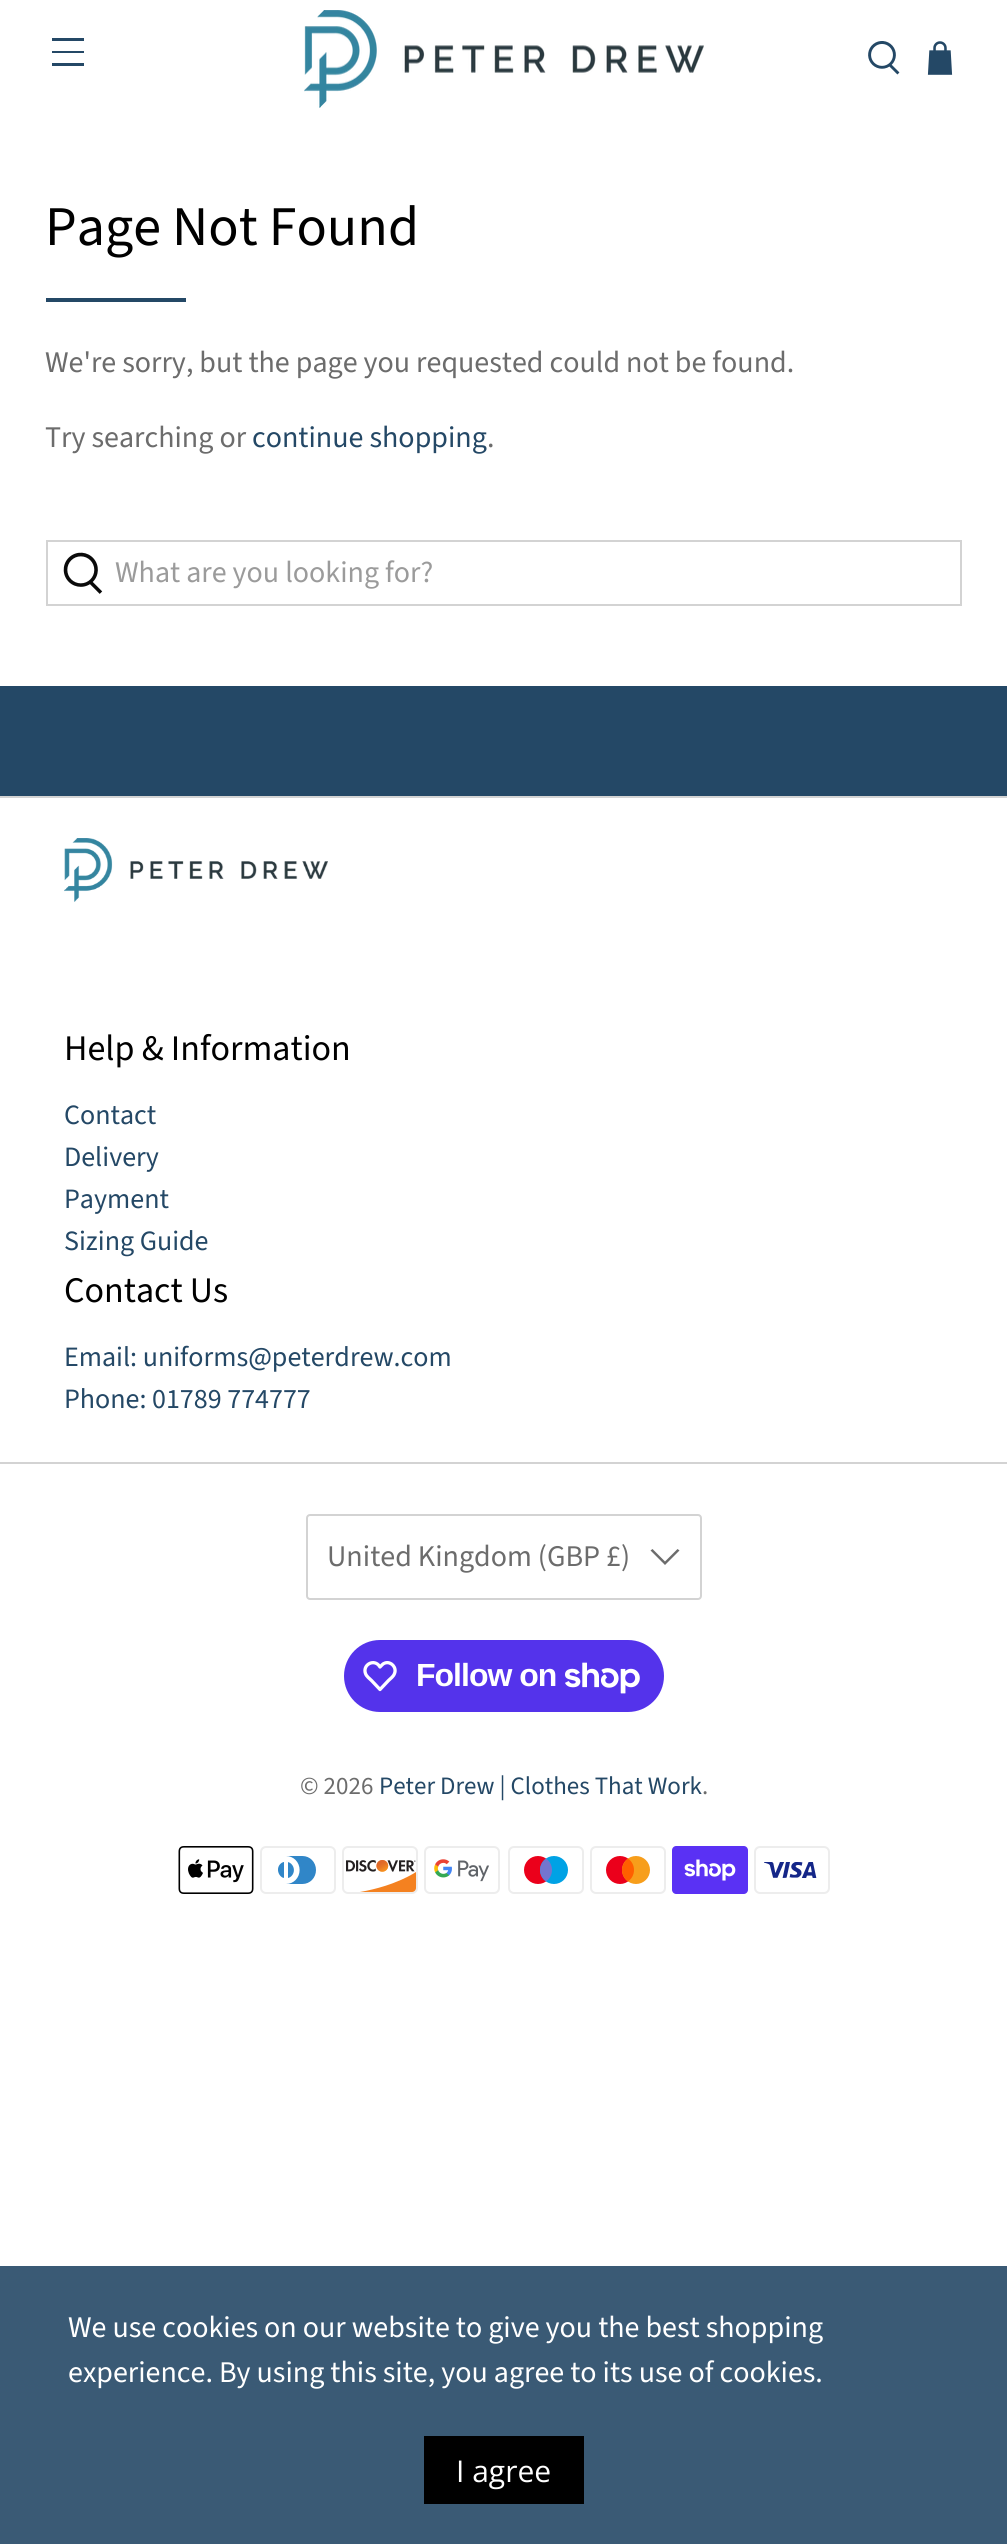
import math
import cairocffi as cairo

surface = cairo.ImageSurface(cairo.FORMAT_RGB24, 1007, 2544)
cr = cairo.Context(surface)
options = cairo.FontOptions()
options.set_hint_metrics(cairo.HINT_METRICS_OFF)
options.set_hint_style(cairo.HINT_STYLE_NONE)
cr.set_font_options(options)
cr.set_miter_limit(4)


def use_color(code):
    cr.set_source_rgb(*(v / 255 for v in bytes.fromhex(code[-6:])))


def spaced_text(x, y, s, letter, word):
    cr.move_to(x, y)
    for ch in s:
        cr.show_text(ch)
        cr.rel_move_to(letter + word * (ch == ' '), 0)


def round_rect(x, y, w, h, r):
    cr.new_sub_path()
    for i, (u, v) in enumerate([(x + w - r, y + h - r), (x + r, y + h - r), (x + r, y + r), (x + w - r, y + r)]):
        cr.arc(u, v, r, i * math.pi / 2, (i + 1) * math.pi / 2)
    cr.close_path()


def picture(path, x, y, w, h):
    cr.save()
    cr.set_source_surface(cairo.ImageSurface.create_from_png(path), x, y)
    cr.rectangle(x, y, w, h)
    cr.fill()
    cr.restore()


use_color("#ffffff")
cr.paint()
use_color("#244866")
cr.rectangle(52, 38, 32, 3)
cr.fill()
cr.rectangle(52, 51, 32, 2)
cr.fill()
cr.rectangle(52, 63, 32, 3)
cr.fill()
picture("img1.png", 304, 10, 400, 98)
picture("img2.png", 868, 41, 32, 34)
picture("img3.png", 927, 41, 26, 34)
cr.select_font_face("Source Sans Pro")
cr.set_font_size(56)
use_color("#000000")
cr.move_to(45, 245)
cr.show_text("Page Not Found")
use_color("#244866")
cr.rectangle(46, 298, 140, 4)
cr.fill()
cr.set_font_size(30)
use_color("#6c6c6c")
cr.move_to(45, 372)
cr.show_text("We're sorry, but the page you requested could not be found.")
cr.move_to(45, 447)
cr.show_text("Try searching or")
use_color("#244866")
cr.move_to(252, 447)
cr.show_text("continue shopping")
use_color("#6c6c6c")
cr.move_to(487, 447)
cr.show_text(".")
cr.rectangle(47, 541, 914, 64)
use_color("#d3d3d3")
cr.stroke()
picture("img4.png", 63, 552, 40, 42)
use_color("#9b9b9b")
cr.move_to(115, 582)
cr.show_text("What are you looking for?")
use_color("#244866")
cr.rectangle(0, 686, 1007, 110)
cr.fill()
use_color("#d3d3d3")
cr.rectangle(0, 796, 1007, 2)
cr.fill()
cr.rectangle(0, 1462, 1007, 2)
cr.fill()
picture("img5.png", 64, 838, 264, 64)
cr.set_font_size(36)
use_color("#000000")
cr.move_to(64, 1060)
cr.show_text("Help & Information")
cr.set_font_size(28)
use_color("#244866")
cr.move_to(64, 1124)
cr.show_text("Contact")
cr.move_to(64, 1166)
cr.show_text("Delivery")
cr.move_to(64, 1208)
cr.show_text("Payment")
cr.move_to(64, 1250)
cr.show_text("Sizing Guide")
cr.set_font_size(36)
use_color("#000000")
cr.move_to(64, 1302)
cr.show_text("Contact Us")
cr.set_font_size(28)
use_color("#244866")
cr.move_to(64, 1366)
cr.show_text("Email: uniforms@peterdrew.com")
cr.move_to(64, 1408)
cr.show_text("Phone: 01789 774777")
round_rect(307, 1515, 394, 84, 3)
use_color("#d3d3d3")
cr.stroke()
cr.set_font_size(30)
use_color("#6c6c6c")
cr.move_to(327, 1566)
cr.show_text("United Kingdom (GBP £)")
cr.new_path()
cr.move_to(665, 1565)
cr.line_to(650.5, 1550.5)
cr.line_to(652.5, 1549)
cr.line_to(665, 1561.5)
cr.line_to(677.5, 1549)
cr.line_to(679.5, 1550.5)
cr.close_path()
cr.fill()
use_color("#5433eb")
round_rect(344, 1640, 320, 72, 36)
cr.fill()
cr.new_path()
cr.move_to(378.5, 1665)
cr.line_to(380, 1667)
cr.curve_to(381.5, 1665.5, 383, 1663.5, 385, 1663)
cr.curve_to(391, 1661, 397, 1667.5, 394.5, 1673.5)
cr.curve_to(393.5, 1676.5, 390.5, 1678.5, 388.5, 1680.5)
cr.line_to(380, 1689.5)
cr.line_to(371.5, 1680.5)
cr.curve_to(369.5, 1678.5, 366.5, 1676.5, 365.5, 1673.5)
cr.curve_to(362.5, 1665.5, 372.5, 1659, 378.5, 1665)
cr.close_path()
use_color("#ffffff")
cr.set_line_width(3.3)
cr.set_line_join(cairo.LINE_JOIN_ROUND)
cr.stroke()
cr.select_font_face("Liberation Sans", cairo.FONT_SLANT_NORMAL, cairo.FONT_WEIGHT_BOLD)
cr.set_font_size(32)
spaced_text(416, 1686, "Follow on", -1, 0)
picture("img6.png", 565, 1662, 75, 32)
cr.select_font_face("Source Sans Pro")
cr.set_font_size(25)
use_color("#6c6c6c")
cr.move_to(300, 1794)
cr.show_text("© 2026")
use_color("#244866")
cr.move_to(379, 1794)
cr.show_text("Peter Drew | Clothes That Work")
use_color("#6c6c6c")
cr.move_to(702, 1794)
cr.show_text(".")
picture("img7.png", 178, 1846, 76, 48)
picture("img8.png", 260, 1846, 76, 48)
picture("img9.png", 342, 1846, 76, 48)
picture("img10.png", 424, 1846, 76, 48)
picture("img11.png", 508, 1846, 76, 48)
picture("img12.png", 590, 1846, 76, 48)
picture("img13.png", 672, 1846, 76, 48)
picture("img14.png", 754, 1846, 76, 48)
use_color("#3a5a75")
cr.rectangle(0, 2266, 1007, 278)
cr.fill()
cr.set_font_size(30)
use_color("#ffffff")
cr.move_to(68, 2337)
cr.show_text("We use cookies on our website to give you the best shopping")
cr.move_to(68, 2382)
cr.show_text("experience. By using this site, you agree to its use of cookies.")
use_color("#000000")
cr.rectangle(424, 2436, 160, 68)
cr.fill()
cr.select_font_face("Open Sans")
use_color("#ffffff")
cr.move_to(456, 2482)
cr.show_text("I agree")
surface.write_to_png("result.png")
